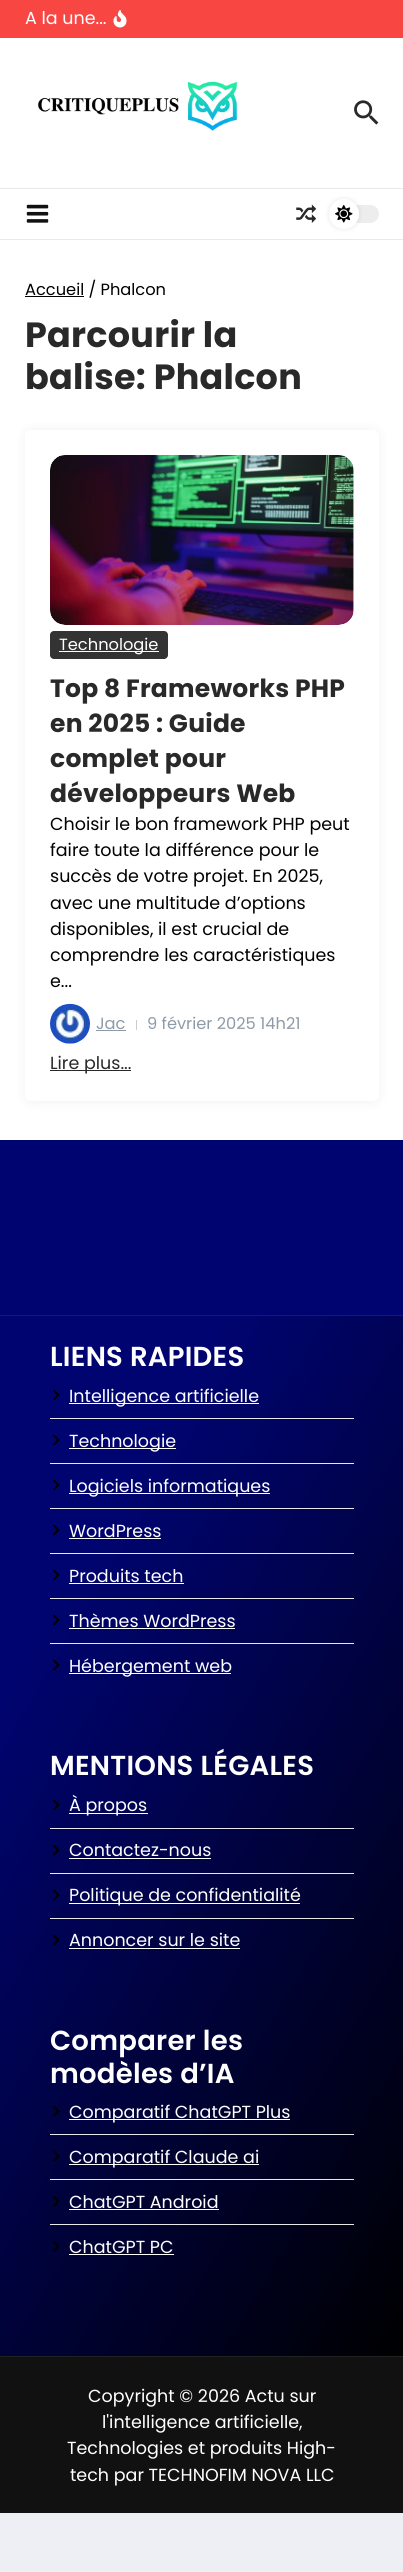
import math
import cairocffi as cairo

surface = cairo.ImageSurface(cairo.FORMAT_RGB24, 403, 2572)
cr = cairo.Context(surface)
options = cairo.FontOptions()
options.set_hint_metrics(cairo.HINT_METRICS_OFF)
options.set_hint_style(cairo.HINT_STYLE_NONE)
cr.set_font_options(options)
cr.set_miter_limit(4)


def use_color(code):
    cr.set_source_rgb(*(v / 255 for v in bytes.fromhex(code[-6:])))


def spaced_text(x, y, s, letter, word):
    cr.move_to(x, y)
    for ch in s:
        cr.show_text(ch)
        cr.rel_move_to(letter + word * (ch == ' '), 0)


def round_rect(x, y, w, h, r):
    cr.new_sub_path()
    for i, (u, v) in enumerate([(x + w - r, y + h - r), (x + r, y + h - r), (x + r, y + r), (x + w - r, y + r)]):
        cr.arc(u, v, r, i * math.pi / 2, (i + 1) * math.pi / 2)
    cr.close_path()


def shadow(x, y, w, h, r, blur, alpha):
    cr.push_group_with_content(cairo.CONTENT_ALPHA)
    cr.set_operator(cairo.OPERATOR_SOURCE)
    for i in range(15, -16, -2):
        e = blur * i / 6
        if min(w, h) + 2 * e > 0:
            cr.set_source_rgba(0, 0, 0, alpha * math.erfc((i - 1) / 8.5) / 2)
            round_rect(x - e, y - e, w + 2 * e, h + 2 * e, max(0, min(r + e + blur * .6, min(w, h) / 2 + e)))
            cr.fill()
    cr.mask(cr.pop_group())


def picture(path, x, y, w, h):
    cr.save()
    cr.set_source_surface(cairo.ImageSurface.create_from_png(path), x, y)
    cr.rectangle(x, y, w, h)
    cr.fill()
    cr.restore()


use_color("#eeeef5")
cr.paint()
use_color("#f84643")
cr.rectangle(0, 0, 403, 38)
cr.fill()
cr.select_font_face("Poppins")
cr.set_font_size(17.5)
use_color("#ffffff")
cr.move_to(25, 24)
cr.show_text("A la une...")
picture("img1.png", 113, 10, 14, 18)
cr.rectangle(0, 38, 403, 150)
cr.fill()
use_color("#e8e8e8")
cr.rectangle(0, 188, 403, 1)
cr.fill()
picture("img2.png", 37, 81, 201, 50)
picture("img3.png", 354, 100, 25, 25)
use_color("#ffffff")
cr.rectangle(0, 189, 403, 50)
cr.fill()
use_color("#e8e8e8")
cr.rectangle(0, 239, 403, 1)
cr.fill()
picture("img4.png", 26, 204, 23, 19)
picture("img5.png", 296, 204, 20, 19)
use_color("#ededed")
round_rect(329, 205, 50, 18, 9)
cr.fill()
use_color("#000000")
shadow(329, 199, 30, 30, 15, 2.5, 0.1)
use_color("#ffffff")
cr.arc(344, 214, 15, 0, 2 * math.pi)
cr.fill()
picture("img6.png", 335, 205, 18, 18)
cr.rectangle(0, 240, 403, 900)
cr.fill()
use_color("#000000")
cr.rectangle(25, 296, 59, 1)
cr.fill()
cr.set_font_size(16.25)
cr.move_to(25, 295)
cr.show_text("Accueil / Phalcon")
cr.select_font_face("Poppins", cairo.FONT_SLANT_NORMAL, cairo.FONT_WEIGHT_BOLD)
cr.set_font_size(35)
use_color("#292929")
spaced_text(25, 347, "Parcourir la", 0.25, 0)
spaced_text(25, 389, "balise: Phalcon", 0.25, 0)
use_color("#000000")
shadow(24, 429, 356, 674, 8, 5, 0.05)
use_color("#ffffff")
round_rect(25, 430, 354, 671, 6)
cr.fill()
picture("img7.png", 50, 455, 304, 170)
use_color("#333333")
round_rect(50, 631, 118, 28, 4)
cr.fill()
use_color("#ffffff")
cr.rectangle(59, 651, 100, 1)
cr.fill()
cr.select_font_face("Poppins")
cr.set_font_size(16.25)
cr.move_to(59, 650)
cr.show_text("Technologie")
cr.select_font_face("Poppins", cairo.FONT_SLANT_NORMAL, cairo.FONT_WEIGHT_BOLD)
cr.set_font_size(25)
use_color("#292929")
spaced_text(50, 697, "Top 8 Frameworks PHP", 0.25, 0)
spaced_text(50, 732, "en 2025 : Guide", 0.25, 0)
spaced_text(50, 767, "complet pour", 0.25, 0)
spaced_text(50, 802, "développeurs Web", 0.25, 0)
cr.select_font_face("Poppins")
cr.set_font_size(17.5)
use_color("#000000")
cr.move_to(50, 830)
cr.show_text("Choisir le bon framework PHP peut")
cr.move_to(50, 856)
cr.show_text("faire toute la différence pour le")
cr.move_to(50, 882)
cr.show_text("succès de votre projet. En 2025,")
cr.move_to(50, 909)
cr.show_text("avec une multitude d’options")
cr.move_to(50, 935)
cr.show_text("disponibles, il est crucial de")
cr.move_to(50, 961)
cr.show_text("comprendre les caractéristiques")
cr.move_to(50, 987)
cr.show_text("e...")
picture("img8.png", 50, 1003, 40, 41)
cr.set_font_size(16.25)
use_color("#8e9ba7")
cr.move_to(96, 1029)
cr.show_text("Jac")
cr.rectangle(96, 1030, 30, 1)
cr.fill()
use_color("#c7cdd3")
cr.rectangle(136, 1020, 1, 10)
cr.fill()
use_color("#8e9ba7")
cr.move_to(147, 1029)
cr.show_text("9 février 2025 14h21")
use_color("#292929")
cr.rectangle(50, 1070, 81, 1)
cr.fill()
cr.set_font_size(17.5)
cr.move_to(50, 1069)
cr.show_text("Lire plus...")
use_color("#000471")
cr.rectangle(0, 1140, 403, 175)
cr.fill()
gradient = cairo.LinearGradient(-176, 1609, 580, 2063)
gradient.add_color_stop_rgba(0.21, 0, 0.016, 0.443, 1)
gradient.add_color_stop_rgba(1, 0, 0, 0, 1)
cr.set_source(gradient)
cr.rectangle(0, 1316, 403, 1040)
cr.fill()
use_color("#222222")
cr.rectangle(0, 1315, 403, 1)
cr.fill()
cr.select_font_face("Poppins SemiBold")
cr.set_font_size(27.5)
use_color("#ffffff")
spaced_text(50, 1366, "LIENS RAPIDES", 0.25, 0)
use_color("#e8e8e8")
cr.rectangle(50, 1418, 304, 1)
cr.fill()
picture("img9.png", 53, 1389, 7, 12)
use_color("#ffffff")
cr.rectangle(69, 1403, 190, 1)
cr.fill()
cr.select_font_face("Poppins")
cr.set_font_size(17.5)
cr.move_to(69, 1402)
cr.show_text("Intelligence artificielle")
use_color("#e8e8e8")
cr.rectangle(50, 1463, 304, 1)
cr.fill()
picture("img9.png", 53, 1434, 7, 12)
use_color("#ffffff")
cr.rectangle(69, 1448, 107, 1)
cr.fill()
cr.move_to(69, 1447)
cr.show_text("Technologie")
use_color("#e8e8e8")
cr.rectangle(50, 1508, 304, 1)
cr.fill()
picture("img9.png", 53, 1479, 7, 12)
use_color("#ffffff")
cr.rectangle(69, 1493, 201, 1)
cr.fill()
cr.move_to(69, 1492)
cr.show_text("Logiciels informatiques")
use_color("#e8e8e8")
cr.rectangle(50, 1553, 304, 1)
cr.fill()
picture("img9.png", 53, 1524, 7, 12)
use_color("#ffffff")
cr.move_to(69, 1537)
cr.show_text("WordPress")
cr.rectangle(69, 1538, 92, 1)
cr.fill()
use_color("#e8e8e8")
cr.rectangle(50, 1598, 304, 1)
cr.fill()
picture("img9.png", 53, 1569, 7, 12)
use_color("#ffffff")
cr.move_to(69, 1582)
cr.show_text("Produits tech")
cr.rectangle(69, 1583, 115, 1)
cr.fill()
use_color("#e8e8e8")
cr.rectangle(50, 1643, 304, 1)
cr.fill()
picture("img10.png", 53, 1614, 7, 12)
use_color("#ffffff")
cr.move_to(69, 1627)
cr.show_text("Thèmes WordPress")
cr.rectangle(69, 1628, 166, 1)
cr.fill()
picture("img11.png", 53, 1659, 7, 12)
cr.rectangle(69, 1673, 162, 1)
cr.fill()
cr.move_to(69, 1672)
cr.show_text("Hébergement web")
cr.select_font_face("Poppins SemiBold")
cr.set_font_size(27.5)
spaced_text(50, 1775, "MENTIONS LÉGALES", 0.25, 0)
use_color("#e8e8e8")
cr.rectangle(50, 1828, 304, 1)
cr.fill()
picture("img12.png", 53, 1799, 7, 12)
use_color("#ffffff")
cr.rectangle(69, 1813, 79, 1)
cr.fill()
cr.select_font_face("Poppins")
cr.set_font_size(17.5)
cr.move_to(69, 1811)
cr.show_text("À propos")
use_color("#e8e8e8")
cr.rectangle(50, 1873, 304, 1)
cr.fill()
picture("img13.png", 53, 1844, 7, 12)
use_color("#ffffff")
cr.move_to(69, 1856)
cr.show_text("Contactez-nous")
cr.rectangle(69, 1858, 142, 1)
cr.fill()
use_color("#e8e8e8")
cr.rectangle(50, 1918, 304, 1)
cr.fill()
picture("img14.png", 53, 1889, 7, 12)
use_color("#ffffff")
cr.rectangle(69, 1903, 231, 1)
cr.fill()
cr.move_to(69, 1901)
cr.show_text("Politique de confidentialité")
picture("img15.png", 53, 1934, 7, 12)
cr.move_to(69, 1946)
cr.show_text("Annoncer sur le site")
cr.rectangle(69, 1948, 171, 1)
cr.fill()
cr.select_font_face("Poppins SemiBold")
cr.set_font_size(27.5)
spaced_text(50, 2050, "Comparer les", 0.25, 0)
spaced_text(50, 2083, "modèles d’IA", 0.25, 0)
use_color("#e8e8e8")
cr.rectangle(50, 2134, 304, 1)
cr.fill()
picture("img16.png", 53, 2106, 7, 11)
use_color("#ffffff")
cr.rectangle(69, 2119, 221, 1)
cr.fill()
cr.select_font_face("Poppins")
cr.set_font_size(17.5)
cr.move_to(69, 2118)
cr.show_text("Comparatif ChatGPT Plus")
use_color("#e8e8e8")
cr.rectangle(50, 2179, 304, 1)
cr.fill()
picture("img17.png", 53, 2151, 7, 11)
use_color("#ffffff")
cr.rectangle(69, 2164, 190, 1)
cr.fill()
cr.move_to(69, 2163)
cr.show_text("Comparatif Claude ai")
use_color("#e8e8e8")
cr.rectangle(50, 2224, 304, 1)
cr.fill()
picture("img18.png", 53, 2196, 7, 11)
use_color("#ffffff")
cr.move_to(69, 2208)
cr.show_text("ChatGPT Android")
cr.rectangle(69, 2209, 150, 1)
cr.fill()
picture("img19.png", 53, 2241, 7, 11)
cr.move_to(69, 2253)
cr.show_text("ChatGPT PC")
cr.rectangle(69, 2254, 105, 1)
cr.fill()
use_color("#111111")
cr.rectangle(0, 2357, 403, 156)
cr.fill()
use_color("#222222")
cr.rectangle(0, 2356, 403, 1)
cr.fill()
use_color("#ffffff")
cr.move_to(88, 2402)
cr.show_text("Copyright © 2026 Actu sur")
cr.move_to(102, 2428)
cr.show_text("l'intelligence artificielle,")
cr.move_to(67, 2454)
cr.show_text("Technologies et produits High-")
cr.move_to(70, 2481)
cr.show_text("tech par TECHNOFIM NOVA LLC")
surface.write_to_png("result.png")
